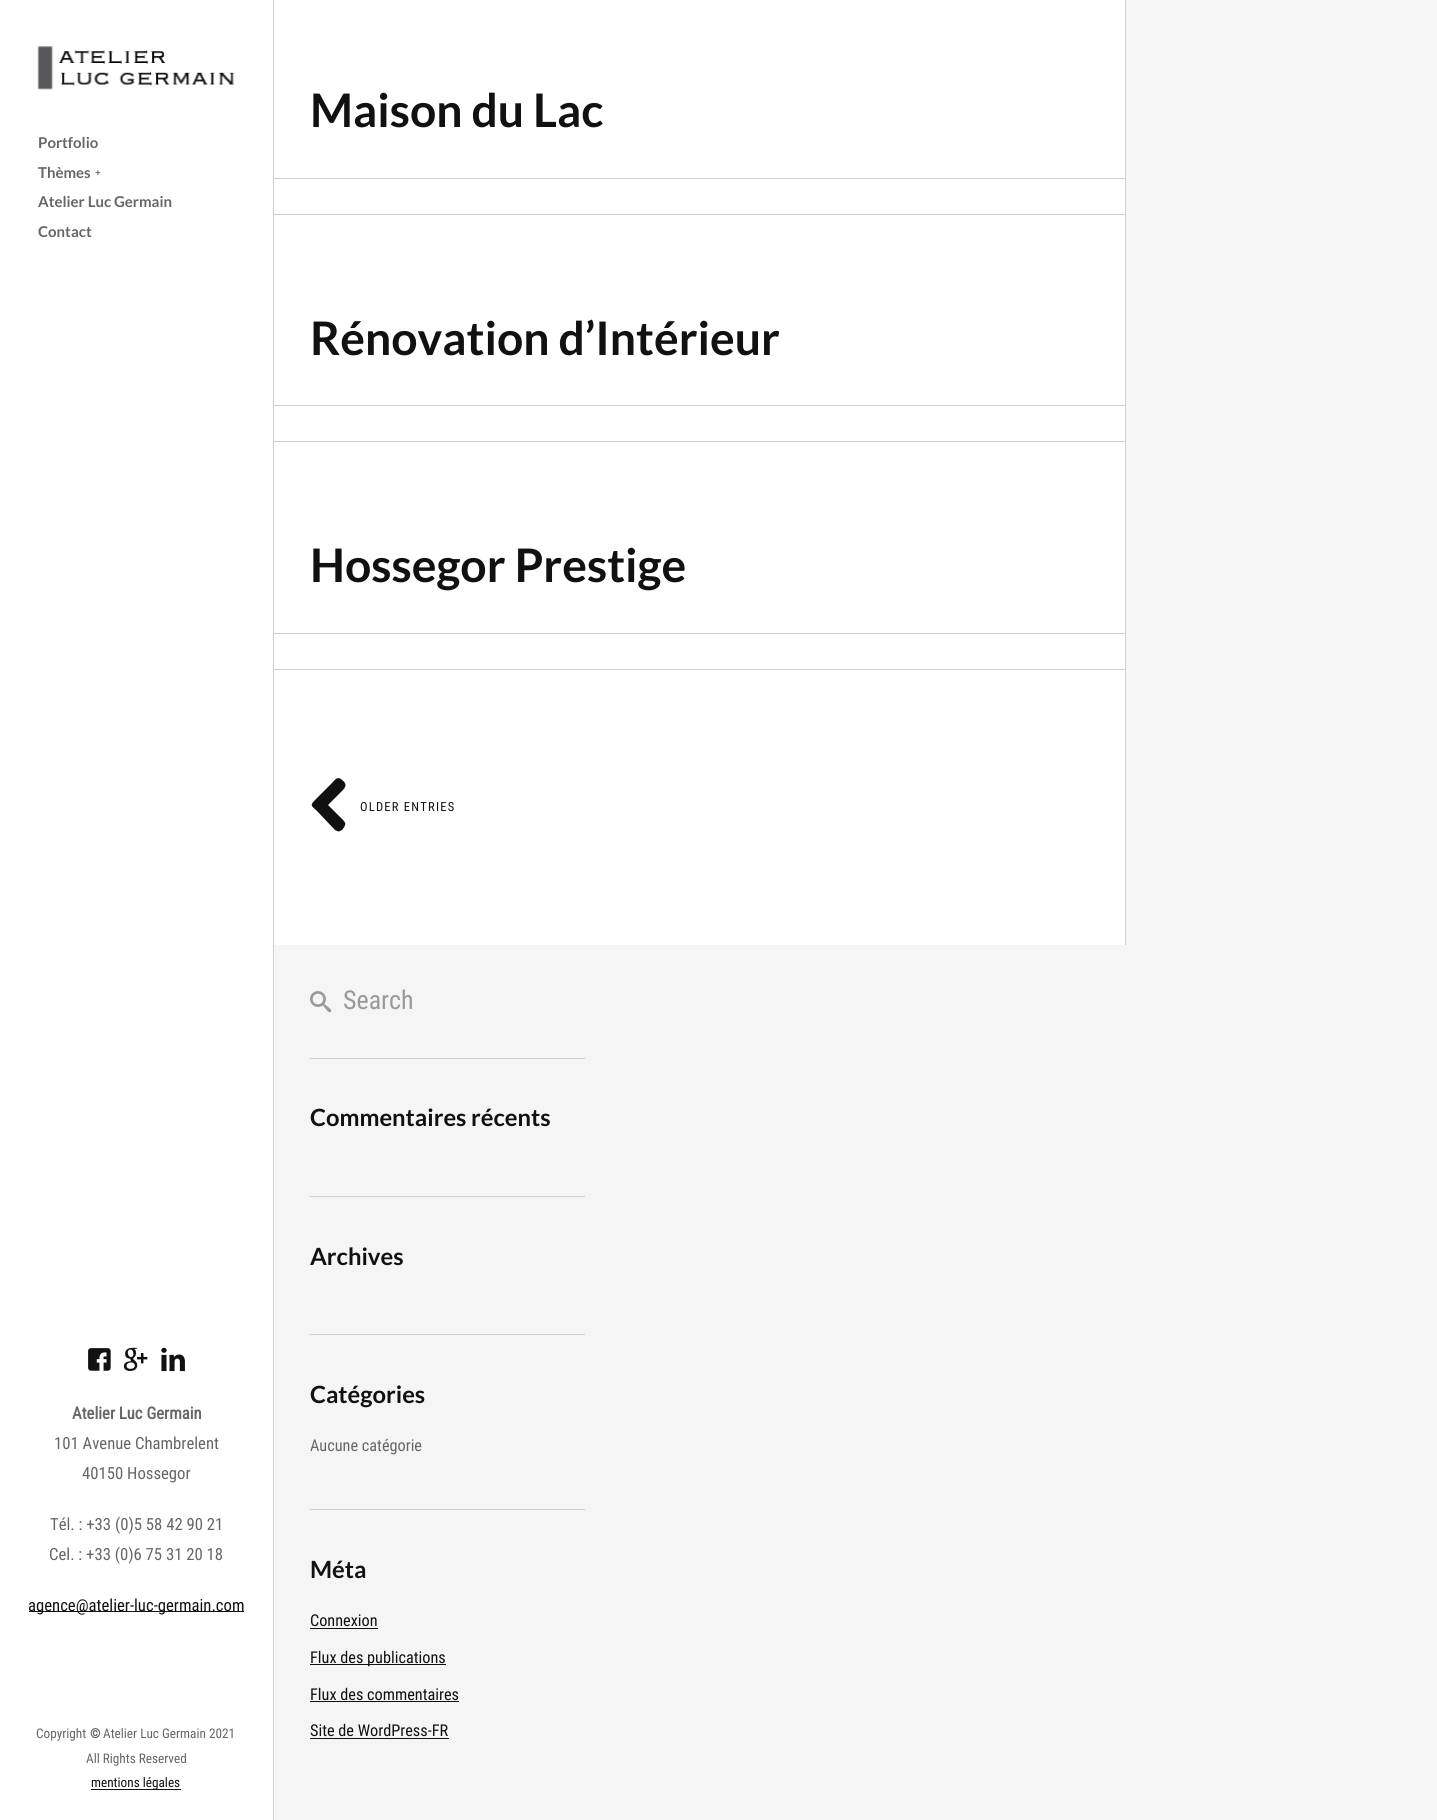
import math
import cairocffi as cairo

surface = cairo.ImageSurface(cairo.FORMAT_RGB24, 1437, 1820)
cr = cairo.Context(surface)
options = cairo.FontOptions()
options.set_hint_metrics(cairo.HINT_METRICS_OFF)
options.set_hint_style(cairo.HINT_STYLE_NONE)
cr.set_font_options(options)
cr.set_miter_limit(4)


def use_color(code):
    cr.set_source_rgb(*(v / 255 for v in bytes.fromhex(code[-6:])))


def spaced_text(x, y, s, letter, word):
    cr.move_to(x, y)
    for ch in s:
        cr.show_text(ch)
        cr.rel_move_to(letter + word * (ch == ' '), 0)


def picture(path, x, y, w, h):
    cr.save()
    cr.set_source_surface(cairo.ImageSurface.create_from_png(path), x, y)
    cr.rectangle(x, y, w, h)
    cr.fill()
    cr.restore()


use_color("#f5f5f5")
cr.paint()
use_color("#ffffff")
cr.rectangle(0, 0, 273, 1820)
cr.fill()
cr.rectangle(274, 0, 851, 945)
cr.fill()
use_color("#cfcfcf")
cr.rectangle(273, 178, 852, 1)
cr.fill()
cr.rectangle(273, 214, 852, 1)
cr.fill()
cr.rectangle(273, 405, 852, 1)
cr.fill()
cr.rectangle(273, 441, 852, 1)
cr.fill()
cr.rectangle(273, 633, 852, 1)
cr.fill()
cr.rectangle(273, 669, 852, 1)
cr.fill()
cr.rectangle(273, 0, 1, 1820)
cr.fill()
picture("img1.png", 37, 46, 198, 44)
cr.select_font_face("Lato", cairo.FONT_SLANT_NORMAL, cairo.FONT_WEIGHT_BOLD)
cr.set_font_size(15)
use_color("#666666")
cr.move_to(38, 148)
cr.show_text("Portfolio")
cr.move_to(38, 178)
cr.show_text("Thèmes")
cr.set_font_size(10)
cr.move_to(95, 176)
cr.show_text("+")
cr.set_font_size(15)
cr.move_to(38, 207)
cr.show_text("Atelier Luc Germain")
cr.move_to(38, 237)
cr.show_text("Contact")
picture("img2.png", 88, 1348, 23, 23)
picture("img3.png", 123, 1347, 25, 24)
picture("img4.png", 161, 1347, 24, 25)
cr.select_font_face("Roboto Condensed", cairo.FONT_SLANT_NORMAL, cairo.FONT_WEIGHT_BOLD)
cr.set_font_size(16.7)
cr.move_to(72, 1419)
cr.show_text("Atelier Luc Germain")
cr.select_font_face("Roboto Condensed")
cr.move_to(54, 1449)
cr.show_text("101 Avenue Chambrelent")
cr.move_to(82, 1479)
cr.show_text("40150 Hossegor")
cr.move_to(50, 1530)
cr.show_text("Tél. : +33 (0)5 58 42 90 21")
cr.move_to(49, 1560)
cr.show_text("Cel. : +33 (0)6 75 31 20 18")
use_color("#111111")
cr.rectangle(29, 1611, 215, 1)
cr.fill()
cr.move_to(28, 1611)
cr.show_text("agence@atelier-luc-germain.com")
cr.set_font_size(13.25)
use_color("#666666")
cr.move_to(36, 1738)
cr.show_text("Copyright")
cr.select_font_face("Roboto Condensed", cairo.FONT_SLANT_NORMAL, cairo.FONT_WEIGHT_BOLD)
cr.move_to(90, 1738)
cr.show_text("©")
cr.select_font_face("Roboto Condensed")
cr.move_to(103, 1738)
cr.show_text("Atelier Luc Germain 2021")
cr.move_to(86, 1763)
cr.show_text("All Rights Reserved")
use_color("#111111")
cr.rectangle(91, 1789, 90, 1)
cr.fill()
cr.move_to(91, 1787)
cr.show_text("mentions légales")
use_color("#cfcfcf")
cr.rectangle(1125, 0, 1, 945)
cr.fill()
cr.select_font_face("Lato", cairo.FONT_SLANT_NORMAL, cairo.FONT_WEIGHT_BOLD)
cr.set_font_size(46.25)
use_color("#111111")
cr.move_to(310, 127)
cr.show_text("Maison du Lac")
cr.move_to(310, 355)
cr.show_text("Rénovation d’Intérieur")
cr.move_to(310, 582)
cr.show_text("Hossegor Prestige")
cr.select_font_face("Roboto Condensed")
cr.set_font_size(12.5)
spaced_text(360, 811, "OLDER ENTRIES", 1.25, 0)
cr.new_path()
cr.move_to(335, 830)
cr.line_to(317, 811)
cr.curve_to(310, 805, 310, 805, 317, 798)
cr.line_to(332, 783)
cr.curve_to(334, 781, 337, 776, 341, 779)
cr.curve_to(349, 785, 345, 788, 339, 794)
cr.line_to(328, 805)
cr.line_to(339, 816)
cr.curve_to(345, 822, 348, 823, 342, 830)
cr.curve_to(340, 831, 339, 832, 337, 831)
cr.close_path()
cr.fill()
use_color("#cfcfcf")
cr.rectangle(310, 1058, 275, 1)
cr.fill()
picture("img5.png", 310, 991, 22, 22)
cr.set_font_size(26)
use_color("#999999")
cr.move_to(343, 1009)
cr.show_text("Search")
use_color("#cfcfcf")
cr.rectangle(310, 1196, 275, 1)
cr.fill()
cr.select_font_face("Lato", cairo.FONT_SLANT_NORMAL, cairo.FONT_WEIGHT_BOLD)
cr.set_font_size(23.75)
use_color("#111111")
cr.move_to(310, 1126)
cr.show_text("Commentaires récents")
use_color("#cfcfcf")
cr.rectangle(310, 1334, 275, 1)
cr.fill()
use_color("#111111")
cr.move_to(310, 1265)
cr.show_text("Archives")
use_color("#cfcfcf")
cr.rectangle(310, 1509, 275, 1)
cr.fill()
use_color("#111111")
cr.move_to(310, 1403)
cr.show_text("Catégories")
cr.select_font_face("Roboto Condensed")
cr.set_font_size(16.25)
use_color("#666666")
cr.move_to(310, 1451)
cr.show_text("Aucune catégorie")
cr.select_font_face("Lato", cairo.FONT_SLANT_NORMAL, cairo.FONT_WEIGHT_BOLD)
cr.set_font_size(23.75)
use_color("#111111")
cr.move_to(310, 1578)
cr.show_text("Méta")
cr.select_font_face("Roboto Condensed")
cr.set_font_size(16.25)
cr.move_to(310, 1626)
cr.show_text("Connexion")
cr.rectangle(310, 1628, 68, 1)
cr.fill()
cr.rectangle(310, 1664, 136, 1)
cr.fill()
cr.move_to(310, 1663)
cr.show_text("Flux des publications")
cr.move_to(310, 1700)
cr.show_text("Flux des commentaires")
cr.rectangle(310, 1701, 149, 1)
cr.fill()
cr.move_to(310, 1736)
cr.show_text("Site de WordPress-FR")
cr.rectangle(310, 1738, 139, 1)
cr.fill()
surface.write_to_png("result.png")
